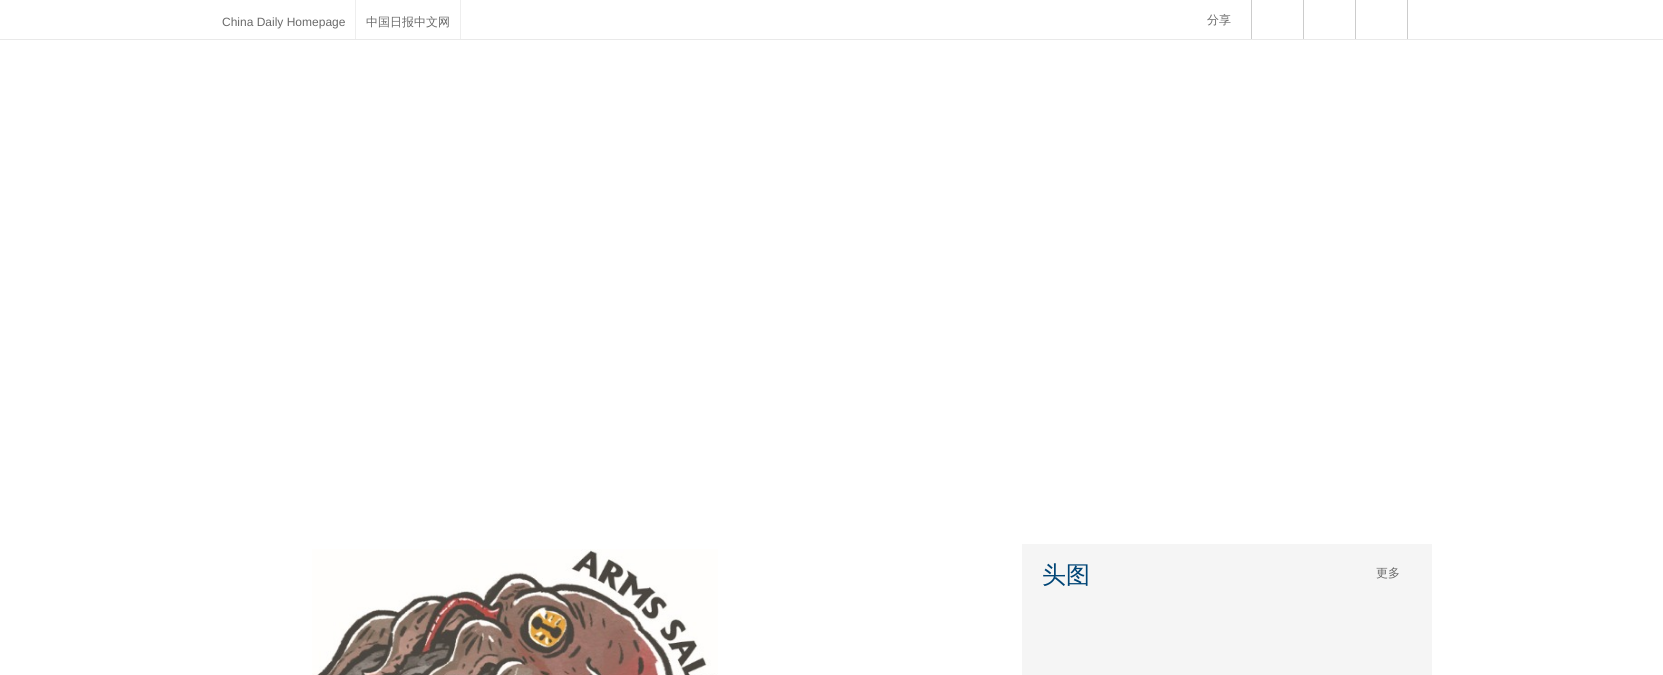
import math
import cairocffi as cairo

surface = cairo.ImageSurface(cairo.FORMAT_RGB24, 1663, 675)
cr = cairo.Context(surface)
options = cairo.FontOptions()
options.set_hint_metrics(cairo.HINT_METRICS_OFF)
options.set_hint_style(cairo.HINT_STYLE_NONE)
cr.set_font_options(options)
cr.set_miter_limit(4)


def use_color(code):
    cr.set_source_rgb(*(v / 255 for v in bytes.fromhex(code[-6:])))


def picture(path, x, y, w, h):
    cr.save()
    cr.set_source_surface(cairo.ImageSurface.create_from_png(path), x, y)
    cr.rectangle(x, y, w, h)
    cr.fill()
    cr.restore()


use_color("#ffffff")
cr.paint()
use_color("#e9e9e9")
cr.rectangle(0, 39, 1663, 1)
cr.fill()
use_color("#eeeeee")
cr.rectangle(355, 0, 1, 39)
cr.fill()
cr.select_font_face("Liberation Sans")
cr.set_font_size(12)
use_color("#6a6a6a")
cr.move_to(222, 26)
cr.show_text("China Daily Homepage")
use_color("#eeeeee")
cr.rectangle(460, 0, 1, 39)
cr.fill()
cr.select_font_face("WenQuanYi Zen Hei Medium")
use_color("#6a6a6a")
cr.move_to(366, 26)
cr.show_text("中国日报中文网")
cr.move_to(1207, 24)
cr.show_text("分享")
use_color("#cccccc")
cr.rectangle(1251, 0, 1, 39)
cr.fill()
cr.rectangle(1303, 0, 1, 39)
cr.fill()
cr.rectangle(1355, 0, 1, 39)
cr.fill()
cr.rectangle(1407, 0, 1, 39)
cr.fill()
picture("img1.png", 312, 549, 406, 126)
use_color("#f5f5f5")
cr.rectangle(1022, 544, 410, 131)
cr.fill()
cr.set_font_size(24)
use_color("#004576")
cr.move_to(1042, 583)
cr.show_text("头图")
cr.set_font_size(12)
use_color("#6a6a6a")
cr.move_to(1376, 577)
cr.show_text("更多")
surface.write_to_png("result.png")
